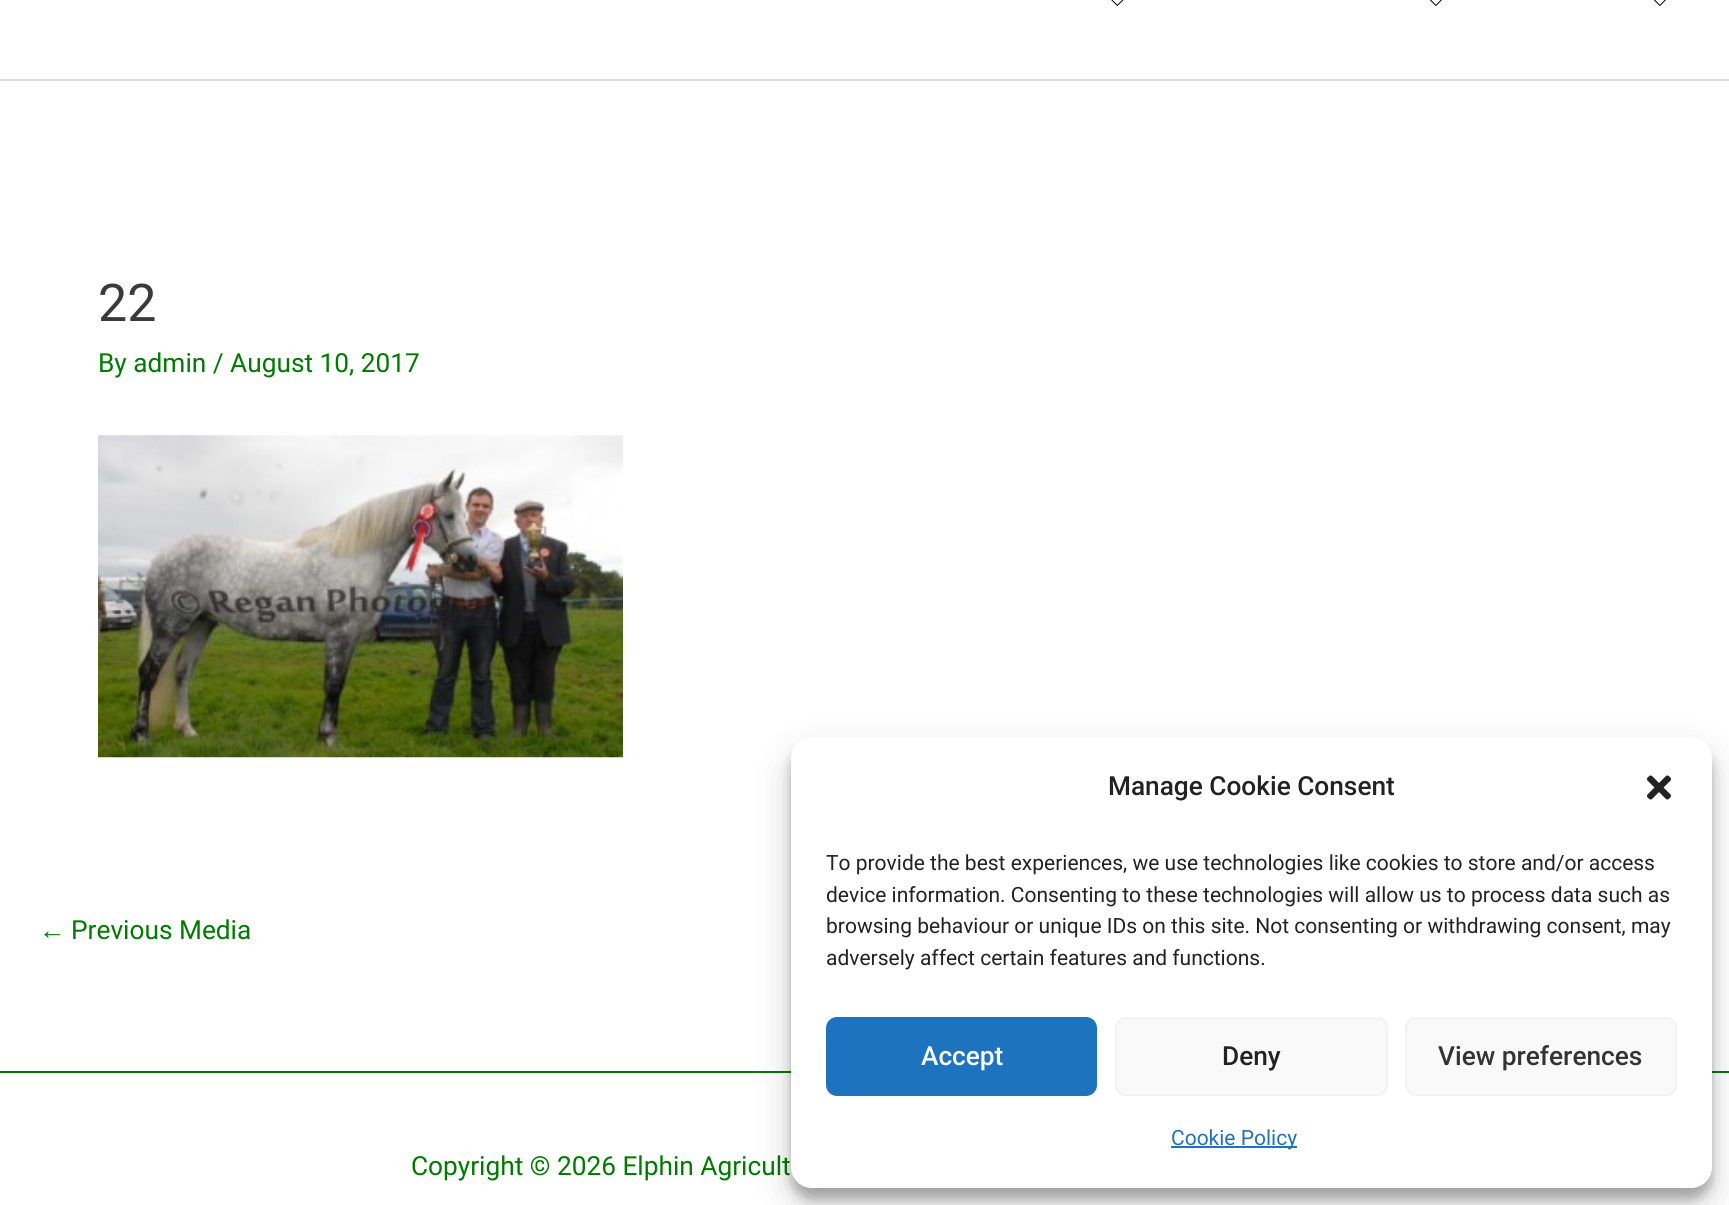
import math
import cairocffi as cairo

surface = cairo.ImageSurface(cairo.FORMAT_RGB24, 1729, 1205)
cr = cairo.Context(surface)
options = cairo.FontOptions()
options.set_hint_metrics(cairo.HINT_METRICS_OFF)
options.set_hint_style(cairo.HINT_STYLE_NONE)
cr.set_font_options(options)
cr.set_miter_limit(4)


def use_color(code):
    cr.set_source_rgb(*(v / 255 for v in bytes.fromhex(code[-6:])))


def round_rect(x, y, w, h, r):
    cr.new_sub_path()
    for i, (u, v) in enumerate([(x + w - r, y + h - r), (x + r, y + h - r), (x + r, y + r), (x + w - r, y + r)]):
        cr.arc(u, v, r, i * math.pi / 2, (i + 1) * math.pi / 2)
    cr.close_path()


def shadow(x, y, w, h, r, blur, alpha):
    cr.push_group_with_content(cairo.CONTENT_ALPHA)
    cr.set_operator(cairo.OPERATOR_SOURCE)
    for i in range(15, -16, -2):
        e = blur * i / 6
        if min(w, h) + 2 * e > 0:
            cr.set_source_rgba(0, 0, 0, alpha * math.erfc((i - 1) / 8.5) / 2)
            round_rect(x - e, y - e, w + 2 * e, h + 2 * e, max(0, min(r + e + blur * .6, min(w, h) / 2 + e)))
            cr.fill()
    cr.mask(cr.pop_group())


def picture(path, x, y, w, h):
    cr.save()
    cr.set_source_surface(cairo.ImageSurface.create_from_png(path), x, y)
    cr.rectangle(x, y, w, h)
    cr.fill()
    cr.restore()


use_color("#ffffff")
cr.paint()
use_color("#dddddd")
cr.rectangle(0, 79, 1729, 2)
cr.fill()
picture("img1.png", 1111, 0, 13, 6)
picture("img2.png", 1429, 0, 13, 6)
picture("img2.png", 1653, 0, 13, 6)
cr.select_font_face("Roboto")
cr.set_font_size(52)
use_color("#3a3a3a")
cr.move_to(98, 321)
cr.show_text("22")
cr.set_font_size(26.25)
use_color("#007a00")
cr.move_to(98, 372)
cr.show_text("By admin / August 10, 2017")
picture("img3.png", 98, 435, 525, 323)
cr.select_font_face("Liberation Sans")
cr.move_to(39, 939)
cr.show_text("←")
cr.select_font_face("Roboto")
cr.move_to(71, 939)
cr.show_text("Previous Media")
cr.rectangle(0, 1071, 1729, 2)
cr.fill()
cr.move_to(411, 1175)
cr.show_text("Copyright © 2026 Elphin Agricult")
use_color("#000000")
shadow(791, 747, 921, 452, 21, 5, 0.23)
shadow(791, 754, 921, 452, 21, 17.5, 0.19)
use_color("#ffffff")
round_rect(791, 737, 921, 451, 21)
cr.fill()
cr.select_font_face("Roboto Medium")
use_color("#222222")
cr.move_to(1108, 795)
cr.show_text("Manage Cookie Consent")
picture("img4.png", 1647, 775, 24, 25)
cr.select_font_face("Roboto")
cr.set_font_size(21)
cr.move_to(826, 870)
cr.show_text("To provide the best experiences, we use technologies like cookies to store and/or access")
cr.move_to(826, 902)
cr.show_text("device information. Consenting to these technologies will allow us to process data such as")
cr.move_to(826, 933)
cr.show_text("browsing behaviour or unique IDs on this site. Not consenting or withdrawing consent, may")
cr.move_to(826, 965)
cr.show_text("adversely affect certain features and functions.")
use_color("#1e73be")
round_rect(827, 1018, 269, 77, 10)
cr.fill_preserve()
cr.stroke()
cr.select_font_face("Roboto Medium")
cr.set_font_size(26.25)
use_color("#ffffff")
cr.move_to(921, 1065)
cr.show_text("Accept")
use_color("#f9f9f9")
round_rect(1116, 1018, 271, 77, 10)
cr.fill_preserve()
use_color("#f2f2f2")
cr.stroke()
use_color("#222222")
cr.move_to(1222, 1065)
cr.show_text("Deny")
use_color("#f9f9f9")
round_rect(1406, 1018, 270, 77, 10)
cr.fill_preserve()
use_color("#f2f2f2")
cr.stroke()
use_color("#333333")
cr.move_to(1438, 1065)
cr.show_text("View preferences")
use_color("#1e73be")
cr.rectangle(1171, 1146, 126, 2)
cr.fill()
cr.select_font_face("Roboto")
cr.set_font_size(21)
cr.move_to(1171, 1145)
cr.show_text("Cookie Policy")
surface.write_to_png("result.png")
